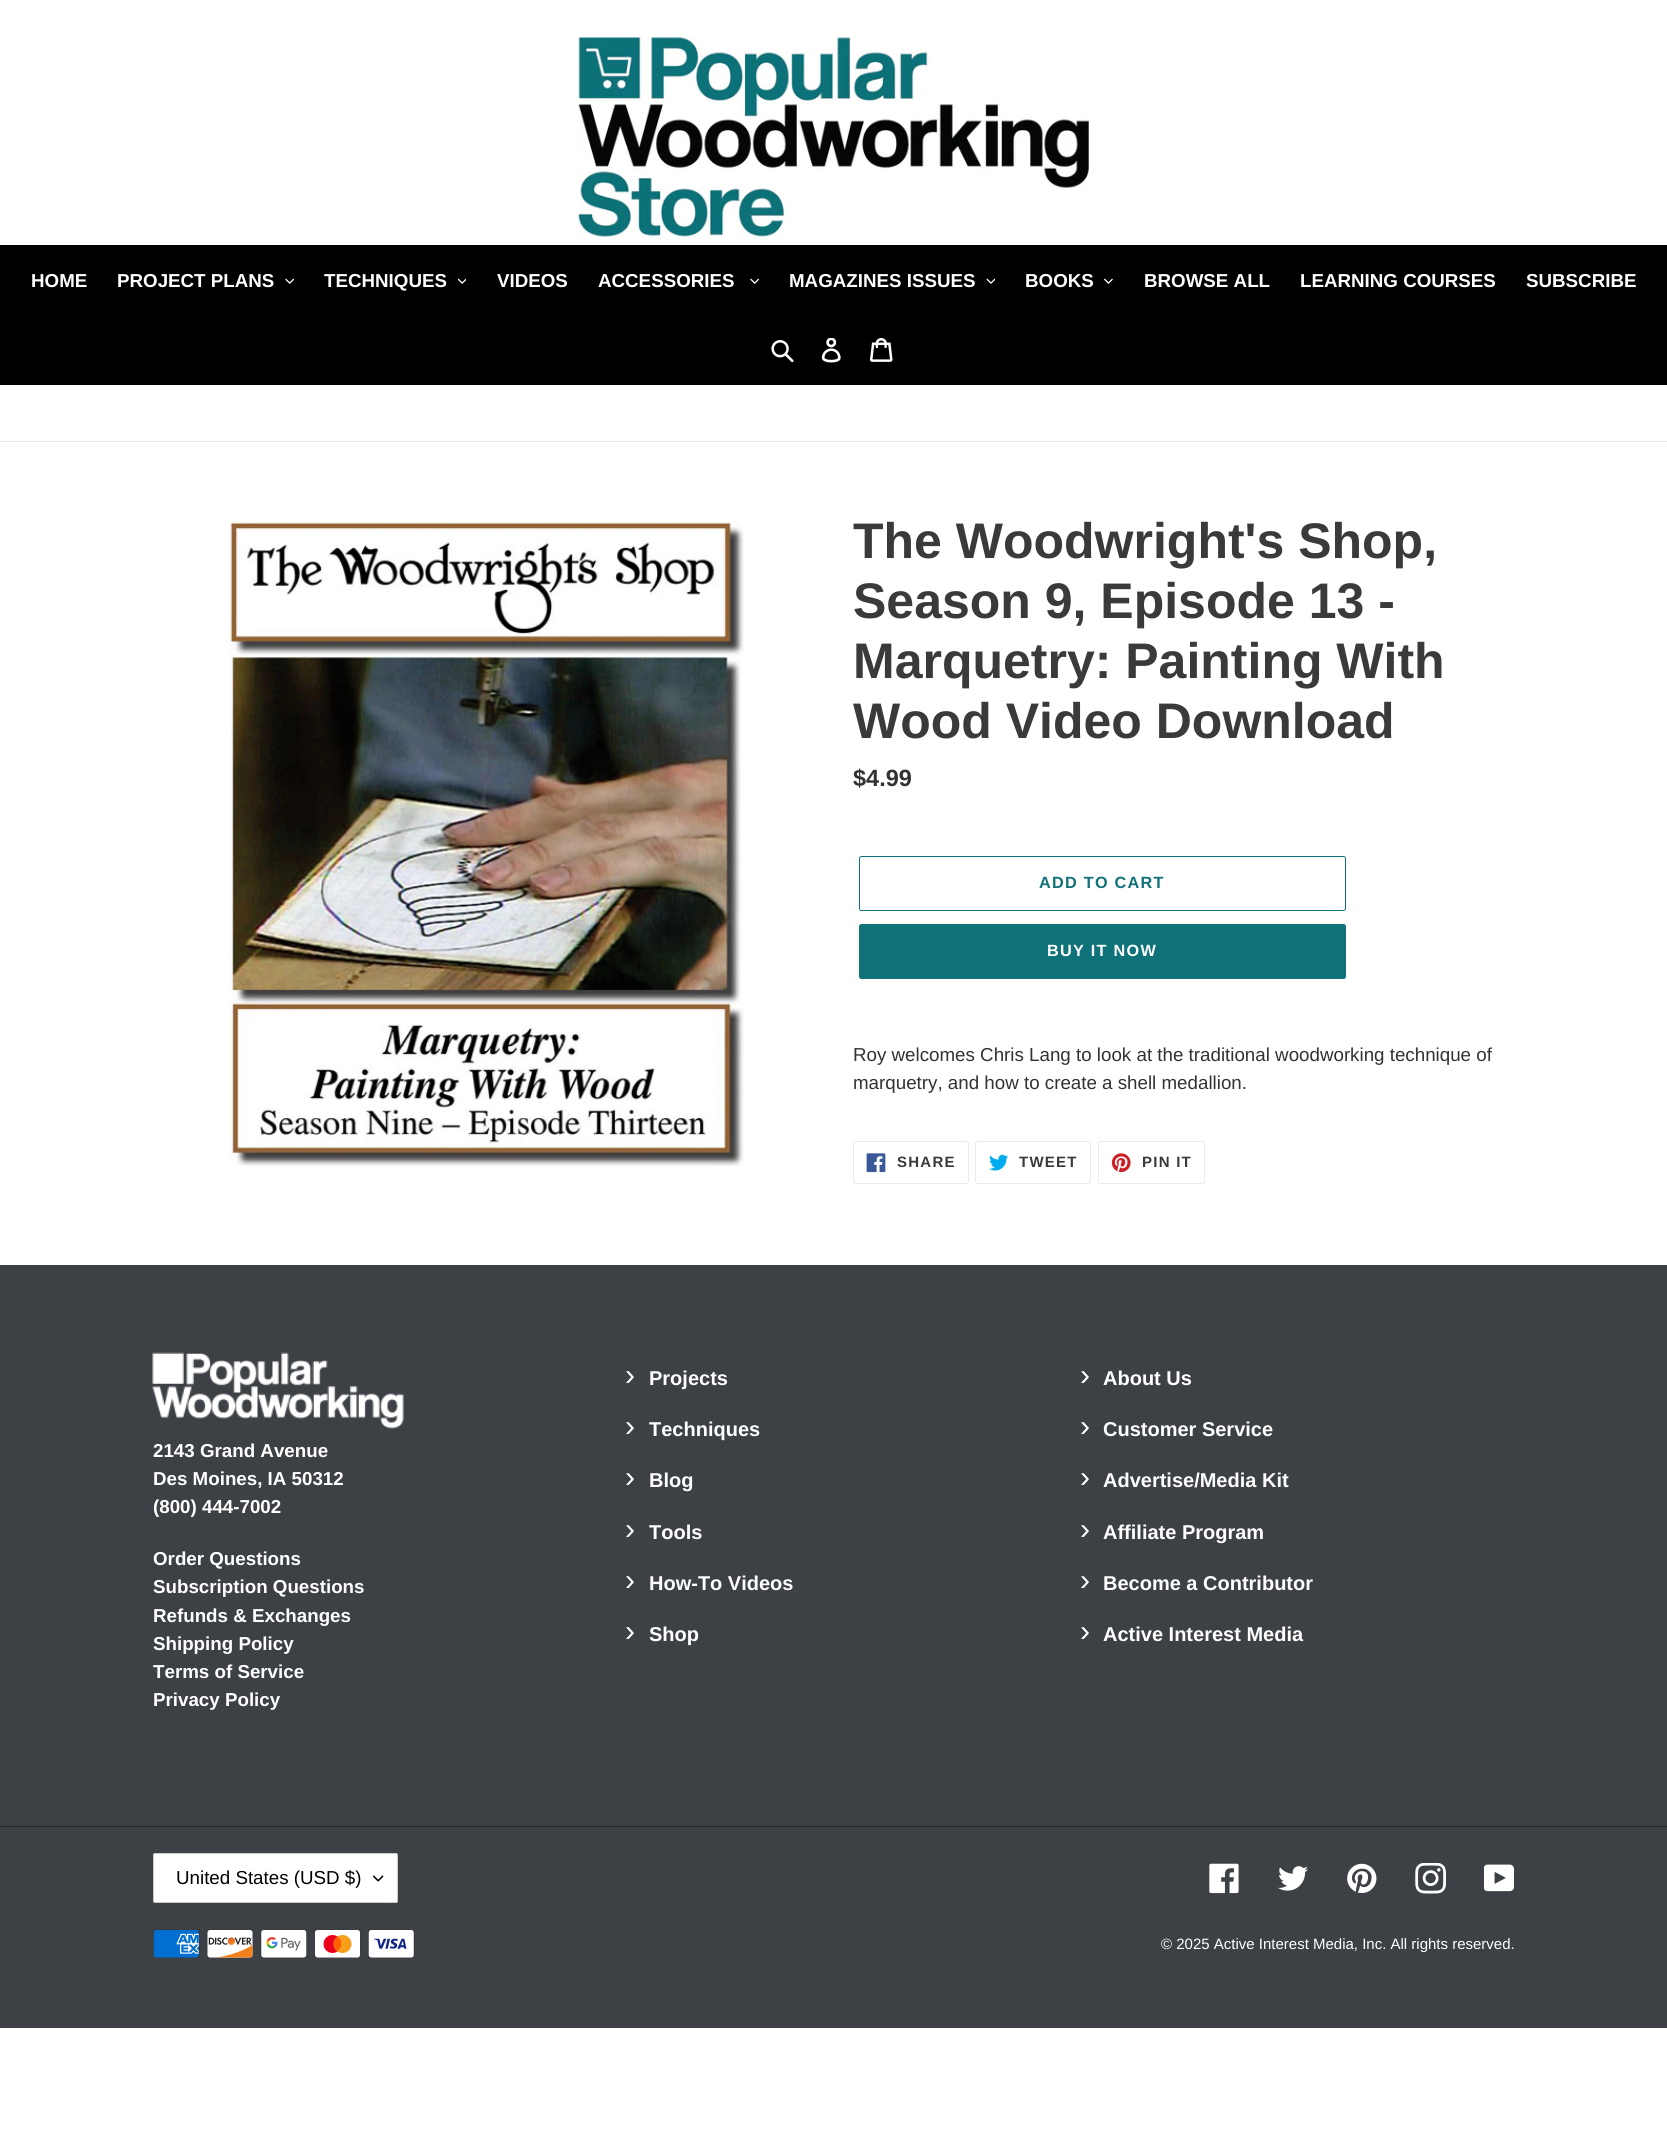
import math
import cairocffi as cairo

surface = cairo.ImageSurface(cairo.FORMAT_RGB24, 1667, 2146)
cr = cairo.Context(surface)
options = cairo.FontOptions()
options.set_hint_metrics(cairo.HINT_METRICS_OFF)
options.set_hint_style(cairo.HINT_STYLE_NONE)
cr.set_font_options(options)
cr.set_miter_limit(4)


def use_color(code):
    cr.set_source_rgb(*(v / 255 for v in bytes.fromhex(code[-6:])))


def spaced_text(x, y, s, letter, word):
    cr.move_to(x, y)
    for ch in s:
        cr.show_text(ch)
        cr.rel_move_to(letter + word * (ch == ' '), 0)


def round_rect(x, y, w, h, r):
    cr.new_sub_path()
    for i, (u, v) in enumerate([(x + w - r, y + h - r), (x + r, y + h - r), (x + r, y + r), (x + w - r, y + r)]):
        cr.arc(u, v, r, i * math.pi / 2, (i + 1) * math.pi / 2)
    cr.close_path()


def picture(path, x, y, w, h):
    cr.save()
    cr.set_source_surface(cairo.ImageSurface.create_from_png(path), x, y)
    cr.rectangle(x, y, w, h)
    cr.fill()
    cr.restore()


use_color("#ffffff")
cr.paint()
picture("img1.png", 578, 37, 511, 201)
use_color("#ebebeb")
cr.rectangle(0, 441, 1667, 1)
cr.fill()
use_color("#000000")
cr.rectangle(0, 245, 1667, 140)
cr.fill()
cr.select_font_face("Liberation Sans", cairo.FONT_SLANT_NORMAL, cairo.FONT_WEIGHT_BOLD)
cr.set_font_size(18.75)
use_color("#ffffff")
cr.move_to(31, 287)
cr.show_text("HOME")
cr.move_to(117, 287)
cr.show_text("PROJECT PLANS")
picture("img2.png", 285, 278, 9, 6)
cr.move_to(324, 287)
cr.show_text("TECHNIQUES")
picture("img3.png", 458, 278, 8, 6)
cr.move_to(497, 287)
cr.show_text("VIDEOS")
cr.move_to(598, 287)
cr.show_text("ACCESSORIES")
picture("img2.png", 750, 278, 9, 6)
cr.move_to(789, 287)
cr.show_text("MAGAZINES ISSUES")
picture("img4.png", 986, 278, 9, 6)
cr.move_to(1025, 287)
cr.show_text("BOOKS")
picture("img5.png", 1104, 278, 9, 6)
cr.move_to(1144, 287)
cr.show_text("BROWSE ALL")
cr.move_to(1300, 287)
cr.show_text("LEARNING COURSES")
cr.move_to(1526, 287)
cr.show_text("SUBSCRIBE")
picture("img6.png", 771, 340, 23, 23)
picture("img7.png", 821, 338, 20, 25)
picture("img8.png", 870, 338, 23, 24)
picture("img9.png", 229, 520, 515, 647)
cr.set_font_size(50)
use_color("#3a3a3a")
cr.move_to(853, 558)
cr.show_text("The Woodwright's Shop,")
cr.move_to(853, 618)
cr.show_text("Season 9, Episode 13 -")
cr.move_to(853, 678)
cr.show_text("Marquetry: Painting With")
cr.move_to(853, 738)
cr.show_text("Wood Video Download")
cr.set_font_size(23.5)
use_color("#333232")
cr.move_to(853, 786)
cr.show_text("$4.99")
round_rect(859.5, 856.5, 486, 54, 2)
use_color("#107279")
cr.set_line_width(1)
cr.stroke()
cr.set_font_size(16.25)
spaced_text(1039, 888, "ADD TO CART", 1.25, 0)
round_rect(859, 924, 487, 55, 2.5)
cr.fill()
use_color("#ffffff")
spaced_text(1047, 956, "BUY IT NOW", 1.25, 0)
cr.select_font_face("Liberation Sans")
cr.set_font_size(18.75)
use_color("#333232")
cr.move_to(853, 1061)
cr.show_text("Roy welcomes Chris Lang to look at the traditional woodworking technique of")
cr.move_to(853, 1089)
cr.show_text("marquetry, and how to create a shell medallion.")
round_rect(853.5, 1141.5, 115, 42, 2)
use_color("#ebebeb")
cr.stroke()
picture("img10.png", 866, 1153, 20, 20)
cr.select_font_face("Liberation Sans", cairo.FONT_SLANT_NORMAL, cairo.FONT_WEIGHT_BOLD)
cr.set_font_size(15)
use_color("#3a3a3a")
spaced_text(897, 1167, "SHARE", 1.25, 0)
round_rect(975.5, 1141.5, 115, 42, 2)
use_color("#ebebeb")
cr.stroke()
picture("img11.png", 989, 1154, 20, 17)
use_color("#3a3a3a")
spaced_text(1019, 1167, "TWEET", 1.25, 0)
round_rect(1098.5, 1141.5, 106, 42, 2)
use_color("#ebebeb")
cr.stroke()
picture("img12.png", 1111, 1153, 20, 20)
use_color("#3a3a3a")
spaced_text(1142, 1167, "PIN IT", 1.25, 0)
use_color("#3d4045")
cr.rectangle(0, 1265, 1667, 763)
cr.fill()
picture("img13.png", 152, 1352, 252, 77)
cr.set_font_size(18.75)
use_color("#ffffff")
cr.move_to(153, 1457)
cr.show_text("2143 Grand Avenue")
cr.move_to(153, 1485)
cr.show_text("Des Moines, IA 50312")
cr.move_to(153, 1513)
cr.show_text("(800) 444-7002")
cr.move_to(153, 1565)
cr.show_text("Order Questions")
cr.move_to(153, 1593)
cr.show_text("Subscription Questions")
cr.move_to(153, 1622)
cr.show_text("Refunds & Exchanges")
cr.move_to(153, 1650)
cr.show_text("Shipping Policy")
cr.move_to(153, 1678)
cr.show_text("Terms of Service")
cr.move_to(153, 1706)
cr.show_text("Privacy Policy")
cr.select_font_face("Liberation Sans")
cr.set_font_size(30)
cr.move_to(625, 1385)
cr.show_text("›")
cr.select_font_face("Liberation Sans", cairo.FONT_SLANT_NORMAL, cairo.FONT_WEIGHT_BOLD)
cr.set_font_size(20)
cr.move_to(649, 1385)
cr.show_text("Projects")
cr.select_font_face("Liberation Sans")
cr.set_font_size(30)
cr.move_to(625, 1436)
cr.show_text("›")
cr.select_font_face("Liberation Sans", cairo.FONT_SLANT_NORMAL, cairo.FONT_WEIGHT_BOLD)
cr.set_font_size(20)
cr.move_to(649, 1436)
cr.show_text("Techniques")
cr.select_font_face("Liberation Sans")
cr.set_font_size(30)
cr.move_to(625, 1487)
cr.show_text("›")
cr.select_font_face("Liberation Sans", cairo.FONT_SLANT_NORMAL, cairo.FONT_WEIGHT_BOLD)
cr.set_font_size(20)
cr.move_to(649, 1487)
cr.show_text("Blog")
cr.select_font_face("Liberation Sans")
cr.set_font_size(30)
cr.move_to(625, 1539)
cr.show_text("›")
cr.select_font_face("Liberation Sans", cairo.FONT_SLANT_NORMAL, cairo.FONT_WEIGHT_BOLD)
cr.set_font_size(20)
cr.move_to(649, 1539)
cr.show_text("Tools")
cr.select_font_face("Liberation Sans")
cr.set_font_size(30)
cr.move_to(625, 1590)
cr.show_text("›")
cr.select_font_face("Liberation Sans", cairo.FONT_SLANT_NORMAL, cairo.FONT_WEIGHT_BOLD)
cr.set_font_size(20)
cr.move_to(649, 1590)
cr.show_text("How-To Videos")
cr.select_font_face("Liberation Sans")
cr.set_font_size(30)
cr.move_to(625, 1641)
cr.show_text("›")
cr.select_font_face("Liberation Sans", cairo.FONT_SLANT_NORMAL, cairo.FONT_WEIGHT_BOLD)
cr.set_font_size(20)
cr.move_to(649, 1641)
cr.show_text("Shop")
cr.select_font_face("Liberation Sans")
cr.set_font_size(30)
cr.move_to(1080, 1385)
cr.show_text("›")
cr.select_font_face("Liberation Sans", cairo.FONT_SLANT_NORMAL, cairo.FONT_WEIGHT_BOLD)
cr.set_font_size(20)
cr.move_to(1103, 1385)
cr.show_text("About Us")
cr.select_font_face("Liberation Sans")
cr.set_font_size(30)
cr.move_to(1080, 1436)
cr.show_text("›")
cr.select_font_face("Liberation Sans", cairo.FONT_SLANT_NORMAL, cairo.FONT_WEIGHT_BOLD)
cr.set_font_size(20)
cr.move_to(1103, 1436)
cr.show_text("Customer Service")
cr.select_font_face("Liberation Sans")
cr.set_font_size(30)
cr.move_to(1080, 1487)
cr.show_text("›")
cr.select_font_face("Liberation Sans", cairo.FONT_SLANT_NORMAL, cairo.FONT_WEIGHT_BOLD)
cr.set_font_size(20)
cr.move_to(1103, 1487)
cr.show_text("Advertise/Media Kit")
cr.select_font_face("Liberation Sans")
cr.set_font_size(30)
cr.move_to(1080, 1539)
cr.show_text("›")
cr.select_font_face("Liberation Sans", cairo.FONT_SLANT_NORMAL, cairo.FONT_WEIGHT_BOLD)
cr.set_font_size(20)
cr.move_to(1103, 1539)
cr.show_text("Affiliate Program")
cr.select_font_face("Liberation Sans")
cr.set_font_size(30)
cr.move_to(1080, 1590)
cr.show_text("›")
cr.select_font_face("Liberation Sans", cairo.FONT_SLANT_NORMAL, cairo.FONT_WEIGHT_BOLD)
cr.set_font_size(20)
cr.move_to(1103, 1590)
cr.show_text("Become a Contributor")
cr.select_font_face("Liberation Sans")
cr.set_font_size(30)
cr.move_to(1080, 1641)
cr.show_text("›")
cr.select_font_face("Liberation Sans", cairo.FONT_SLANT_NORMAL, cairo.FONT_WEIGHT_BOLD)
cr.set_font_size(20)
cr.move_to(1103, 1641)
cr.show_text("Active Interest Media")
use_color("#25272a")
cr.rectangle(0, 1826, 1667, 1)
cr.fill()
use_color("#ffffff")
round_rect(153, 1853, 245, 50, 2.5)
cr.fill()
picture("img14.png", 373, 1875, 11, 7)
round_rect(153.5, 1853.5, 244, 49, 2)
use_color("#cccccc")
cr.stroke()
cr.select_font_face("Liberation Sans")
cr.set_font_size(18.75)
use_color("#000000")
cr.move_to(176, 1884)
cr.show_text("United States (USD $)")
picture("img15.png", 1209, 1863, 30, 31)
picture("img16.png", 1278, 1866, 30, 25)
picture("img17.png", 1347, 1863, 30, 30)
picture("img18.png", 1415, 1863, 31, 31)
picture("img19.png", 1484, 1864, 30, 28)
picture("img20.png", 153, 1929, 47, 29)
picture("img21.png", 207, 1929, 46, 29)
picture("img22.png", 260, 1929, 47, 29)
picture("img23.png", 314, 1929, 47, 29)
picture("img24.png", 368, 1929, 47, 29)
cr.set_font_size(15)
use_color("#ffffff")
cr.move_to(1161, 1949)
cr.show_text("© 2025 Active Interest Media, Inc. All rights reserved.")
surface.write_to_png("result.png")
